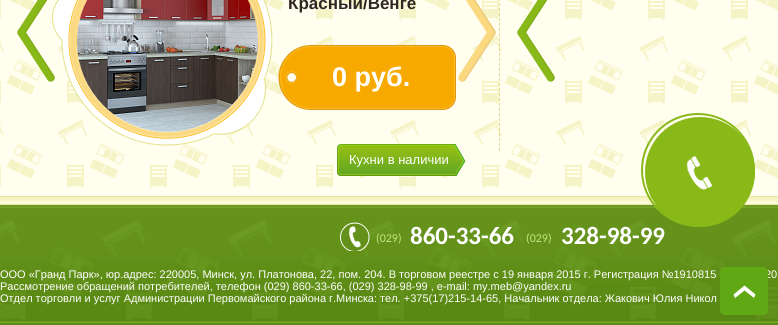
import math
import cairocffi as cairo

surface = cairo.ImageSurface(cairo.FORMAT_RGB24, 778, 325)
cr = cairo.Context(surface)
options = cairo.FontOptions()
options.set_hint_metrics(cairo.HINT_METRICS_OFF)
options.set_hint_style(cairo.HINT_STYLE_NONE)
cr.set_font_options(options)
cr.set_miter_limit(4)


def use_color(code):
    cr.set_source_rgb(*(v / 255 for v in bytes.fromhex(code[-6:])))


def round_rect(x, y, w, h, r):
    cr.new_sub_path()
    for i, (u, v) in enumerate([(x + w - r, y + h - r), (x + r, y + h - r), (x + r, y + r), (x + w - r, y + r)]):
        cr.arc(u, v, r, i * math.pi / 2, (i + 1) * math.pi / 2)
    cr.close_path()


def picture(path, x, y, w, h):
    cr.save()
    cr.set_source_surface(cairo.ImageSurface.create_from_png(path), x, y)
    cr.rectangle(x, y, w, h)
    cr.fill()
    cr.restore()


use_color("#5b8b15")
cr.paint()
picture("img1.png", 0, 0, 778, 196)
picture("img2.png", 17, 0, 38, 82)
picture("img3.png", 52, 0, 221, 146)
use_color("#ffffff")
cr.arc(167.5, 41.5, 90.5, 0, 2 * math.pi)
cr.fill()
picture("img4.png", 77, 0, 181, 132)
cr.select_font_face("Liberation Sans", cairo.FONT_SLANT_NORMAL, cairo.FONT_WEIGHT_BOLD)
cr.set_font_size(17)
use_color("#2f2923")
cr.move_to(288, 9)
cr.show_text("Красный/Венге")
picture("img5.png", 278, 45, 178, 65)
cr.set_font_size(27)
use_color("#ffffff")
cr.move_to(332, 86)
cr.show_text("0 руб.")
picture("img6.png", 458, 0, 38, 82)
picture("img7.png", 337, 144, 4, 32)
picture("img8.png", 341, 144, 125, 32)
cr.select_font_face("Liberation Sans")
cr.set_font_size(13)
cr.move_to(349, 164)
cr.show_text("Кухни в наличии")
picture("img9.png", 499, 0, 1, 151)
picture("img10.png", 517, 0, 38, 82)
picture("img11.png", 0, 196, 778, 9)
picture("img13.png", 0, 205, 778, 118)
cr.select_font_face("Carlito", cairo.FONT_SLANT_NORMAL, cairo.FONT_WEIGHT_BOLD)
cr.set_font_size(25)
cr.move_to(561, 244)
cr.show_text("328-98-99")
cr.new_path()
cr.arc(698, 170, 56, 0, 2 * math.pi)
use_color("#88b918")
cr.stroke()
cr.arc(700, 172, 55, 0, 2 * math.pi)
cr.fill()
picture("img12.png", 687, 156, 26, 34)
picture("img14.png", 340, 222, 30, 29)
cr.select_font_face("Carlito")
cr.set_font_size(12)
use_color("#c1e783")
cr.move_to(376, 242)
cr.show_text("(029)")
cr.select_font_face("Carlito", cairo.FONT_SLANT_NORMAL, cairo.FONT_WEIGHT_BOLD)
cr.set_font_size(25)
use_color("#ffffff")
cr.move_to(410, 244)
cr.show_text("860-33-66")
cr.select_font_face("Carlito")
cr.set_font_size(12)
use_color("#c1e783")
cr.move_to(526, 242)
cr.show_text("(029)")
cr.select_font_face("Liberation Sans")
cr.set_font_size(11)
use_color("#ffffff")
cr.move_to(0, 278)
cr.show_text("ООО «Гранд Парк», юр.адрес: 220005, Минск, ул. Платонова, 22, пом. 204. В торговом реестре с 19 января 2015 г. Регистрация №1910815")
cr.move_to(765, 278)
cr.show_text("20")
cr.move_to(0, 290)
cr.show_text("Рассмотрение обращений потребителей, телефон (029) 860-33-66, (029) 328-98-99 , e-mail: my.meb@yandex.ru")
cr.move_to(0, 302)
cr.show_text("Отдел торговли и услуг Администрации Первомайского района г.Минска: тел. +375(17)215-14-65, Начальник отдела: Жакович Юлия Никол")
use_color("#60a914")
round_rect(720, 267, 48, 48, 5)
cr.fill()
use_color("#ffffff")
cr.new_path()
cr.move_to(754, 298)
cr.line_to(755.5, 294.5)
cr.line_to(744.5, 285.5)
cr.line_to(733.5, 294.5)
cr.line_to(735, 298)
cr.line_to(744.5, 290.5)
cr.close_path()
cr.fill()
surface.write_to_png("result.png")
